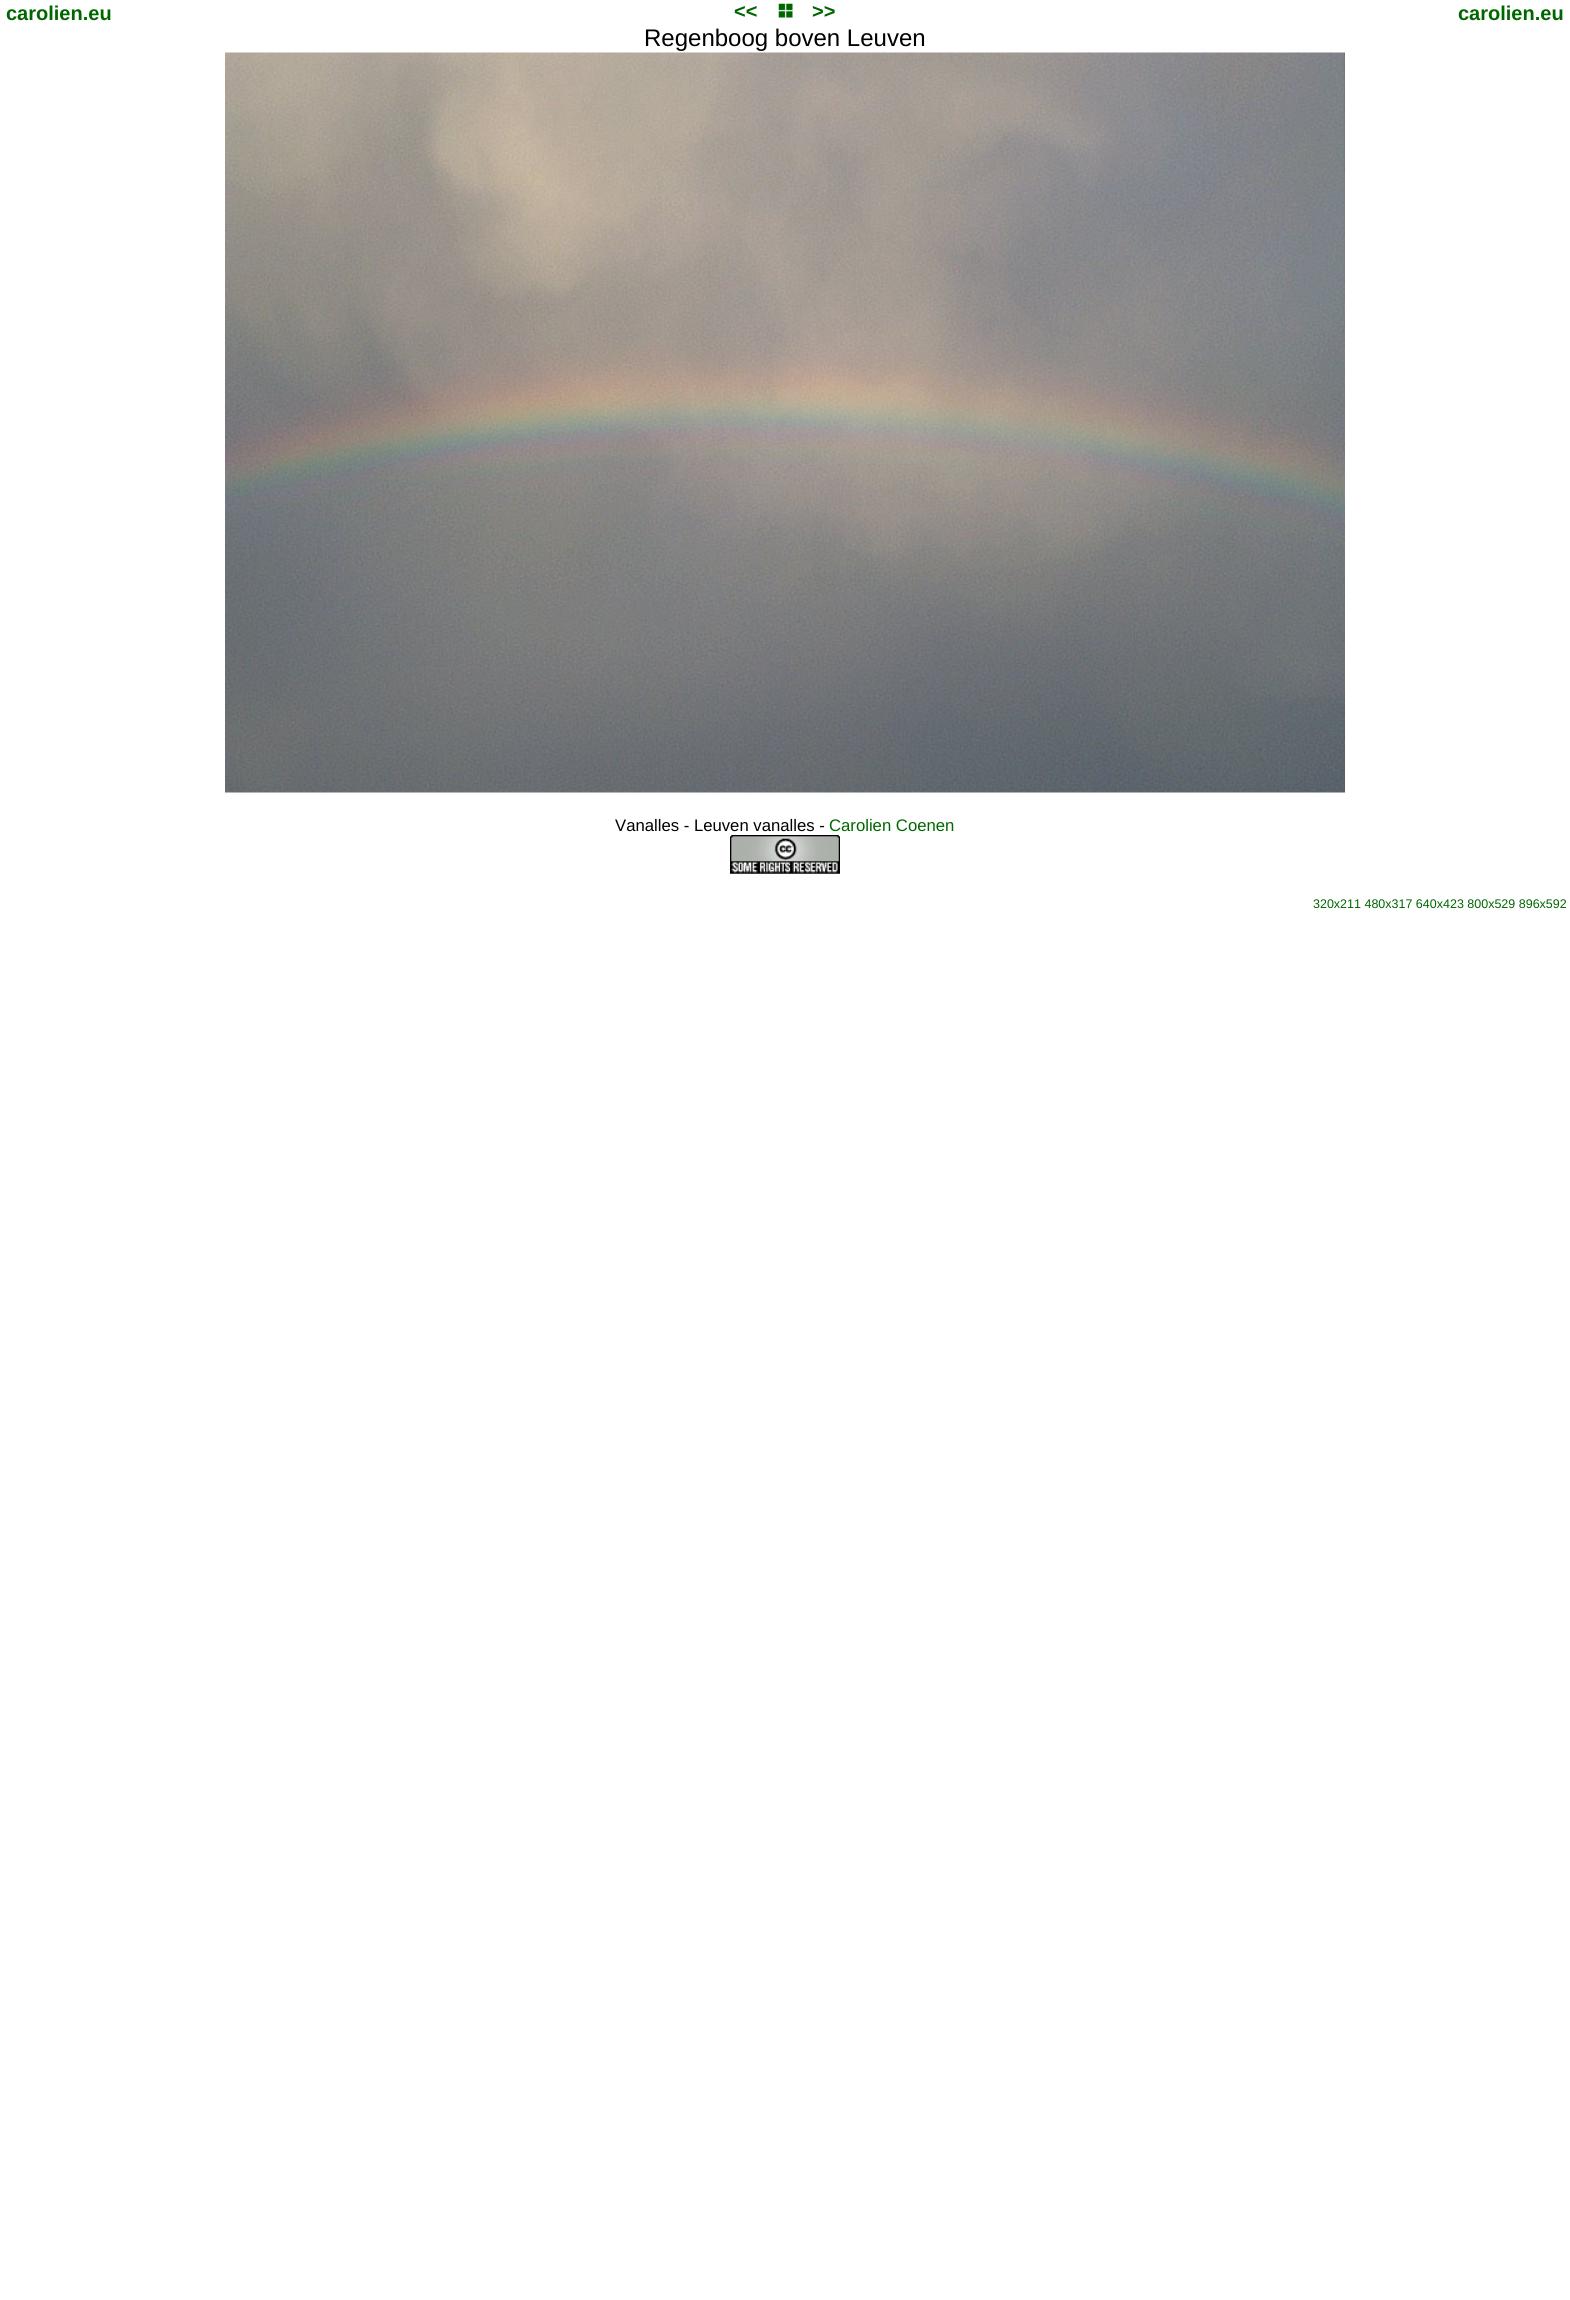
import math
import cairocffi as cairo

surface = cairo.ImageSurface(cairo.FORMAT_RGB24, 1570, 2300)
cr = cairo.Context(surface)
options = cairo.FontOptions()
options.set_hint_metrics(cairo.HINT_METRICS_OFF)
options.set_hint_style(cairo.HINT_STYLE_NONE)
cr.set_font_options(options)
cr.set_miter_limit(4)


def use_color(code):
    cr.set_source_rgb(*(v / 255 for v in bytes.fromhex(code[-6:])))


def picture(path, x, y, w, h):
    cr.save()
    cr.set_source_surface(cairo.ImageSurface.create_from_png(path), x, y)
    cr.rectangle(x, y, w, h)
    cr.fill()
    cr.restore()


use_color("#ffffff")
cr.paint()
cr.select_font_face("Liberation Sans", cairo.FONT_SLANT_NORMAL, cairo.FONT_WEIGHT_BOLD)
cr.set_font_size(20)
use_color("#006600")
cr.move_to(6, 20)
cr.show_text("carolien.eu")
cr.move_to(734, 18)
cr.show_text("<<")
picture("img1.png", 778, 3, 15, 15)
cr.move_to(812, 18)
cr.show_text(">>")
cr.move_to(1458, 20)
cr.show_text("carolien.eu")
cr.select_font_face("Liberation Sans")
cr.set_font_size(24)
use_color("#000000")
cr.move_to(644, 46)
cr.show_text("Regenboog boven Leuven")
picture("img2.png", 225, 52, 1120, 741)
cr.set_font_size(16.7)
cr.move_to(615, 831)
cr.show_text("Vanalles - Leuven vanalles -")
use_color("#006600")
cr.move_to(829, 831)
cr.show_text("Carolien Coenen")
picture("img3.png", 730, 835, 110, 39)
cr.set_font_size(12.5)
cr.move_to(1313, 908)
cr.show_text("320x211 480x317 640x423 800x529 896x592")
surface.write_to_png("result.png")
